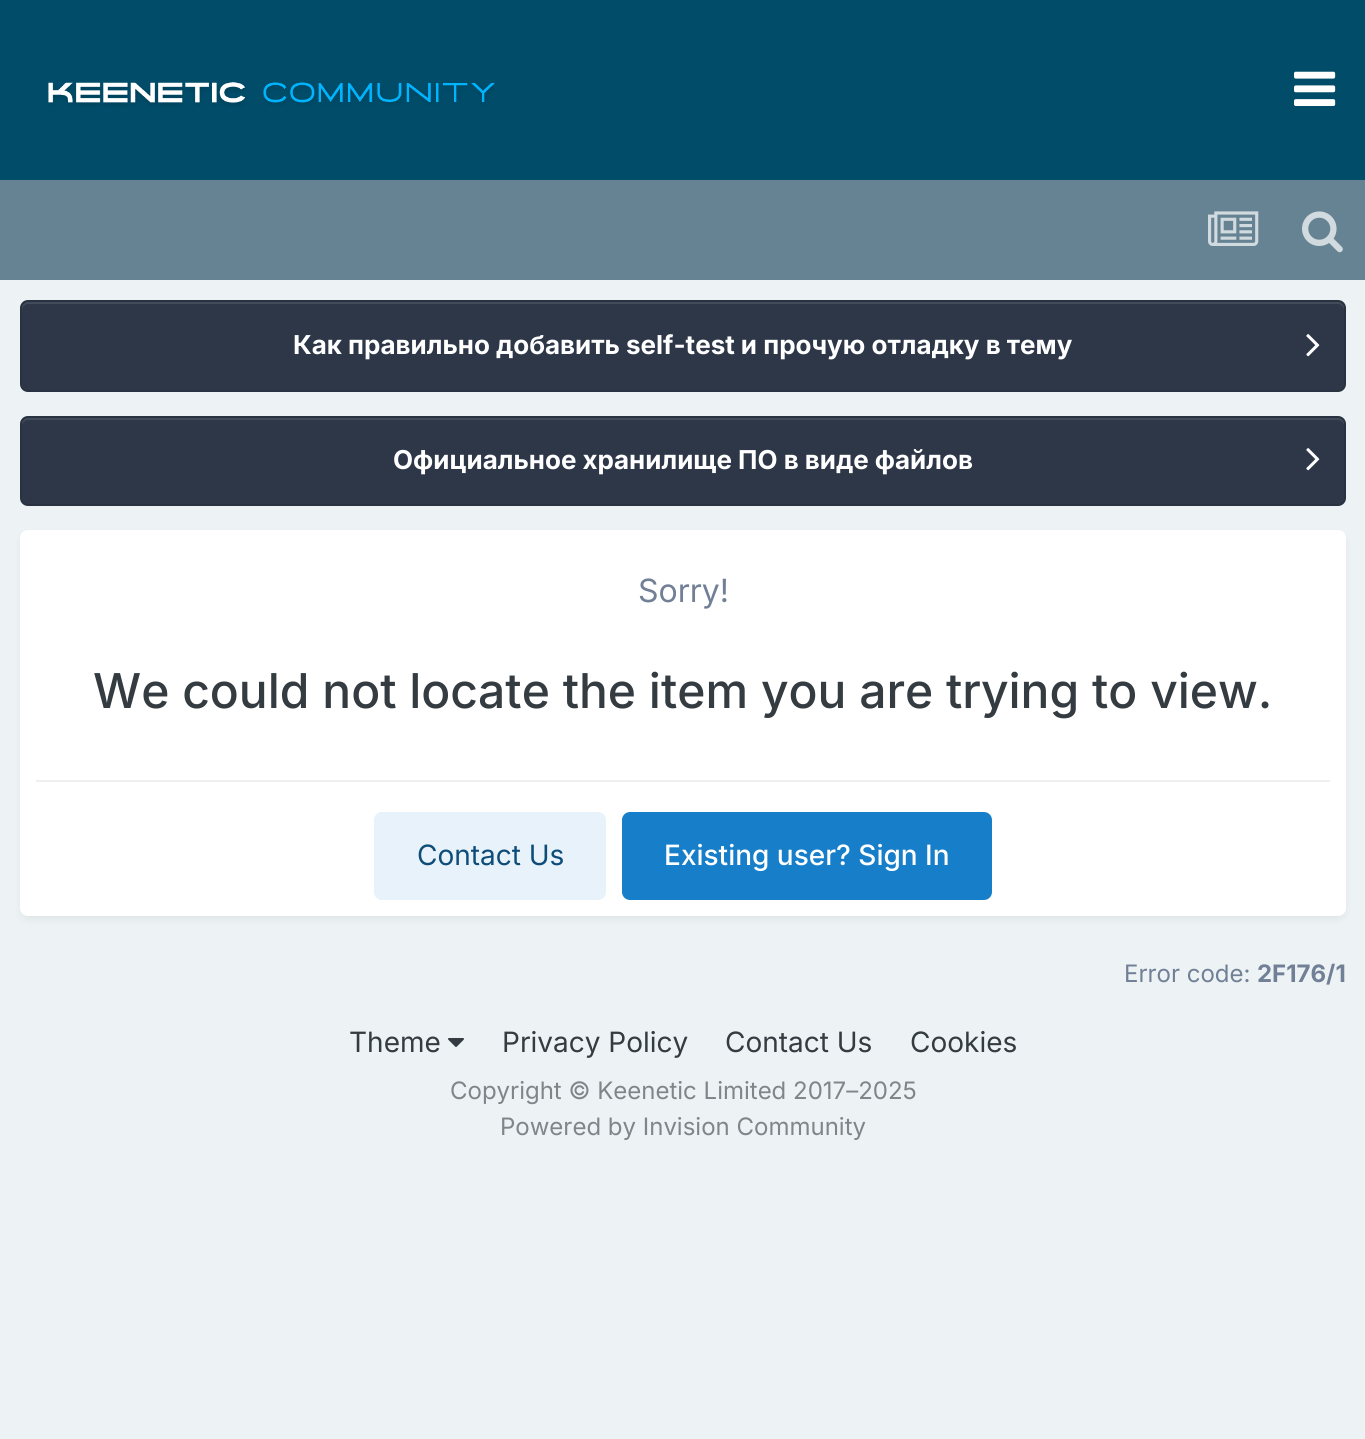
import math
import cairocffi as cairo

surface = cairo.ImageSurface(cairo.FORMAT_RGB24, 1365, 1439)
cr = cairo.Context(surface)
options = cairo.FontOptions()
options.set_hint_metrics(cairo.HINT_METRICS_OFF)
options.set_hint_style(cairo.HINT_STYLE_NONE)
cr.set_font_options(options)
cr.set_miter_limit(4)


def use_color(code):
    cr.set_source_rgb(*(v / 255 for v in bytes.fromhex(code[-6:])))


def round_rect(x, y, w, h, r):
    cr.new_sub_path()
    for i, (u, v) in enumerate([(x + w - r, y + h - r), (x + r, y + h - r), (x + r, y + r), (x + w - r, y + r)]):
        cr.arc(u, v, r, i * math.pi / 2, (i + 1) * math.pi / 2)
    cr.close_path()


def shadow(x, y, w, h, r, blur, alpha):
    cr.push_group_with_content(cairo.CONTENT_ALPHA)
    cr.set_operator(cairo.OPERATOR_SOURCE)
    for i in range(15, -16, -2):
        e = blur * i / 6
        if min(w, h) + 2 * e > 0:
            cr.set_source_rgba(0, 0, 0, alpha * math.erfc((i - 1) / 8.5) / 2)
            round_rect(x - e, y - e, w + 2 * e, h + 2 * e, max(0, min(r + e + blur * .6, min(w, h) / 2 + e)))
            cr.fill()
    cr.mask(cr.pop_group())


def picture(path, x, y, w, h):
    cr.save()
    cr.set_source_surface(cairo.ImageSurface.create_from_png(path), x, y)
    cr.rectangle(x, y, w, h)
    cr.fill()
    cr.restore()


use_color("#edf3f4")
cr.paint()
use_color("#004c69")
cr.rectangle(0, 0, 1365, 180)
cr.fill()
picture("img1.png", 48, 82, 447, 25)
picture("img2.png", 1294, 71, 42, 35)
use_color("#668393")
cr.rectangle(0, 180, 1365, 100)
cr.fill()
picture("img3.png", 1208, 211, 51, 35)
picture("img4.png", 1302, 211, 41, 42)
use_color("#2d3748")
round_rect(20, 300, 1326, 92, 8)
cr.fill()
use_color("#424b5a")
cr.new_path()
cr.move_to(28, 304)
cr.line_to(1338, 304)
cr.curve_to(1341, 304, 1344, 307, 1344, 310)
cr.line_to(1344, 308)
cr.curve_to(1344, 305, 1341, 302, 1338, 302)
cr.line_to(28, 302)
cr.curve_to(25, 302, 22, 305, 22, 308)
cr.line_to(22, 310)
cr.curve_to(22, 307, 25, 304, 28, 304)
cr.close_path()
cr.fill()
round_rect(21, 301, 1324, 90, 7)
cr.set_source_rgba(0, 0, 0, 0.1)
cr.stroke()
cr.select_font_face("Inter", cairo.FONT_SLANT_NORMAL, cairo.FONT_WEIGHT_BOLD)
cr.set_font_size(26)
use_color("#ffffff")
cr.move_to(293, 354)
cr.show_text("Как правильно добавить self-test и прочую отладку в тему")
picture("img5.png", 1306, 334, 14, 23)
use_color("#2d3748")
round_rect(20, 416, 1326, 90, 8)
cr.fill()
use_color("#424b5a")
cr.new_path()
cr.move_to(28, 420)
cr.line_to(1338, 420)
cr.curve_to(1341, 420, 1344, 423, 1344, 426)
cr.line_to(1344, 424)
cr.curve_to(1344, 421, 1341, 418, 1338, 418)
cr.line_to(28, 418)
cr.curve_to(25, 418, 22, 421, 22, 424)
cr.line_to(22, 426)
cr.curve_to(22, 423, 25, 420, 28, 420)
cr.close_path()
cr.fill()
round_rect(21, 417, 1324, 88, 7)
cr.set_source_rgba(0, 0, 0, 0.1)
cr.stroke()
use_color("#ffffff")
cr.move_to(393, 469)
cr.show_text("Официальное хранилище ПО в виде файлов")
picture("img5.png", 1306, 448, 14, 23)
use_color("#2d3748")
shadow(22, 536, 1322, 382, 6, 4, 0.1)
use_color("#ffffff")
round_rect(20, 530, 1326, 386, 8)
cr.fill()
cr.select_font_face("Inter")
cr.set_font_size(32)
use_color("#718096")
cr.move_to(638, 602)
cr.show_text("Sorry!")
cr.select_font_face("Inter Medium")
cr.set_font_size(48)
use_color("#353c41")
cr.move_to(93, 708)
cr.show_text("We could not locate the item you are trying to view.")
use_color("#efeff0")
cr.rectangle(36, 780, 1294, 2)
cr.fill()
use_color("#e8f2fa")
round_rect(374, 812, 232, 88, 8)
cr.fill()
cr.select_font_face("Inter")
cr.set_font_size(28)
use_color("#0e4c79")
cr.move_to(417, 865)
cr.show_text("Contact Us")
use_color("#177ec9")
round_rect(622, 812, 370, 88, 8)
cr.fill()
cr.select_font_face("Inter Medium")
use_color("#ffffff")
cr.move_to(664, 865)
cr.show_text("Existing user? Sign In")
cr.select_font_face("Inter")
cr.set_font_size(24)
use_color("#718096")
cr.move_to(1124, 982)
cr.show_text("Error code:")
cr.select_font_face("Inter", cairo.FONT_SLANT_NORMAL, cairo.FONT_WEIGHT_BOLD)
cr.move_to(1257, 982)
cr.show_text("2F176/1")
cr.select_font_face("Inter")
cr.set_font_size(28)
use_color("#353c41")
cr.move_to(349, 1052)
cr.show_text("Theme")
picture("img6.png", 448, 1038, 16, 9)
cr.move_to(502, 1052)
cr.show_text("Privacy Policy")
cr.move_to(725, 1052)
cr.show_text("Contact Us")
cr.move_to(910, 1052)
cr.show_text("Cookies")
cr.set_font_size(24)
use_color("#7f8589")
cr.move_to(450, 1099)
cr.show_text("Copyright © Keenetic Limited 2017–2025")
cr.move_to(500, 1135)
cr.show_text("Powered by Invision Community")
surface.write_to_png("result.png")
